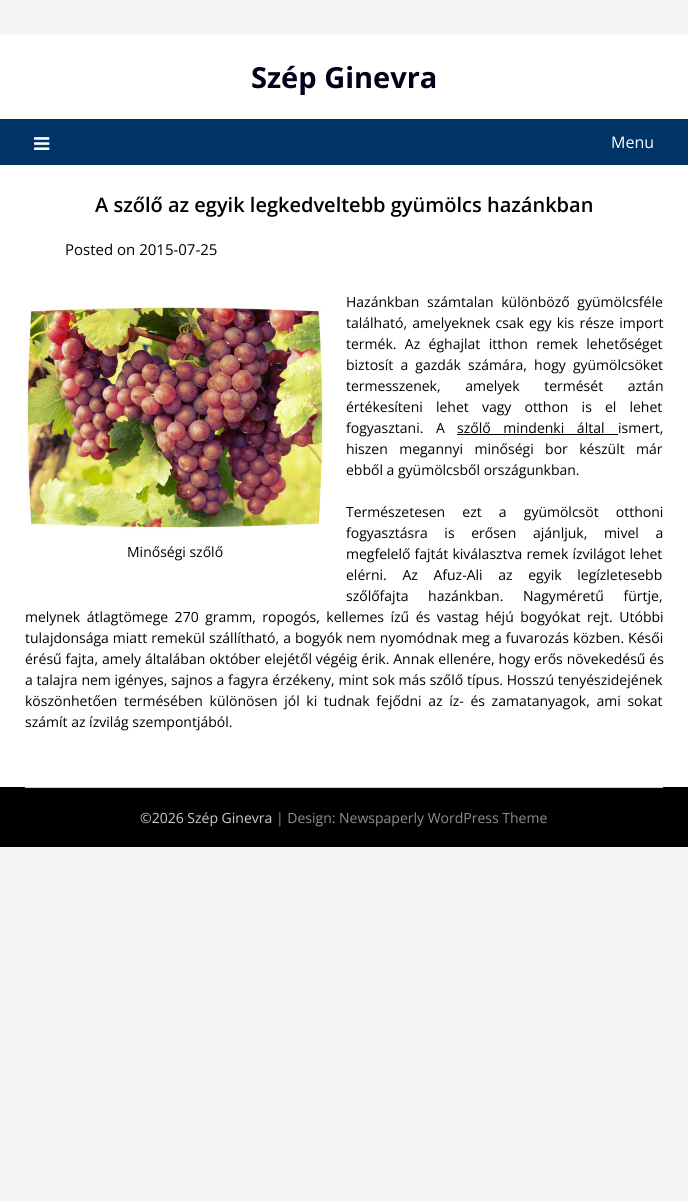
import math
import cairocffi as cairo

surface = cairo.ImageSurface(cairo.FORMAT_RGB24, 688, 1201)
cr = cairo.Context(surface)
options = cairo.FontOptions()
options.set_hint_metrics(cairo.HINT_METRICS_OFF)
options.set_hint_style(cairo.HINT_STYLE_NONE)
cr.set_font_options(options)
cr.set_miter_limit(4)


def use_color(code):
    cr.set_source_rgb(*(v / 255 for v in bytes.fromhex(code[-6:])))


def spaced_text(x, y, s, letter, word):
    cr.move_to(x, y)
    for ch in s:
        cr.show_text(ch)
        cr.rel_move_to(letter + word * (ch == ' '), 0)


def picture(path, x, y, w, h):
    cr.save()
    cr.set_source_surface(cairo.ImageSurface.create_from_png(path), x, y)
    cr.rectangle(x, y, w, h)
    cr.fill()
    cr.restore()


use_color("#f5f5f5")
cr.paint()
use_color("#ffffff")
cr.rectangle(0, 35, 688, 84)
cr.fill()
cr.select_font_face("Open Sans", cairo.FONT_SLANT_NORMAL, cairo.FONT_WEIGHT_BOLD)
cr.set_font_size(29)
use_color("#00021a")
cr.move_to(251, 88)
cr.show_text("Szép Ginevra")
use_color("#003366")
cr.rectangle(0, 119, 688, 46)
cr.fill()
picture("img1.png", 34, 137, 16, 13)
cr.select_font_face("Open Sans")
cr.set_font_size(16)
use_color("#ffffff")
cr.move_to(611, 148)
cr.show_text("Menu")
cr.rectangle(0, 165, 688, 622)
cr.fill()
cr.select_font_face("Open Sans SemiBold")
cr.set_font_size(20)
use_color("#000000")
cr.move_to(95, 212)
cr.show_text("A szőlő az egyik legkedveltebb gyümölcs hazánkban")
cr.select_font_face("Open Sans")
cr.set_font_size(15)
cr.move_to(65, 255)
cr.show_text("Posted on 2015-07-25")
cr.set_font_size(14)
spaced_text(346, 307, "Hazánkban számtalan különböző gyümölcsféle", 0, 4)
spaced_text(346, 328, "található, amelyeknek csak egy kis része import", 0, 1.5)
spaced_text(346, 349, "termék. Az éghajlat itthon remek lehetőséget", 0, 4.75)
spaced_text(346, 370, "biztosít a gazdák számára, hogy gyümölcsöket", 0, 3.5)
spaced_text(346, 391, "termesszenek, amelyek termését aztán", 0, 21)
spaced_text(346, 412, "értékesíteni lehet vagy otthon is el lehet", 0, 9.5)
spaced_text(346, 433, "fogyasztani. A", 0, 9)
spaced_text(457, 433, "szőlő mindenki által", 0, 9)
cr.move_to(618, 433)
cr.show_text("ismert,")
cr.rectangle(457, 434, 161, 1)
cr.fill()
spaced_text(346, 454, "hiszen megannyi minőségi bor készült már", 0, 7.75)
cr.move_to(346, 475)
cr.show_text("ebből a gyümölcsből országunkban.")
spaced_text(346, 517, "Természetesen ezt a gyümölcsöt otthoni", 0, 13.5)
spaced_text(346, 538, "fogyasztásra is erősen ajánljuk, mivel a", 0, 13)
spaced_text(346, 559, "megfelelő fajtát kiválasztva remek ízvilágot lehet", 0, 0.5)
spaced_text(346, 580, "elérni. Az Afuz-Ali az egyik legízletesebb", 0, 12)
spaced_text(346, 601, "szőlőfajta hazánkban. Nagyméretű fürtje,", 0, 16)
spaced_text(25, 622, "melynek átlagtömege 270 gramm, ropogós, kellemes ízű és vastag héjú bogyókat rejt. Utóbbi", 0, 2.9)
spaced_text(25, 643, "tulajdonsága miatt remekül szállítható, a bogyók nem nyomódnak meg a fuvarozás közben. Késői", 0, 0.4)
spaced_text(25, 664, "érésű fajta, amely általában október elejétől végéig érik. Annak ellenére, hogy erős növekedésű és", 0, 0.25)
spaced_text(25, 685, "a talajra nem igényes, sajnos a fagyra érzékeny, mint sok más szőlő típus. Hosszú tenyészidejének", 0, 0.1)
spaced_text(25, 706, "köszönhetően termésében különösen jól ki tudnak fejődni az íz- és zamatanyagok, ami sokat", 0, 3)
cr.move_to(25, 727)
cr.show_text("számít az ízvilág szempontjából.")
picture("img2.png", 25, 305, 300, 225)
cr.move_to(127, 557)
cr.show_text("Minőségi szőlő")
cr.rectangle(0, 787, 688, 60)
cr.fill()
use_color("#cccccc")
cr.rectangle(25, 787, 638, 1)
cr.fill()
cr.move_to(140, 823)
cr.show_text("©2026 Szép Ginevra")
use_color("#8f8f8f")
cr.move_to(276, 823)
cr.show_text("| Design: Newspaperly WordPress Theme")
surface.write_to_png("result.png")
